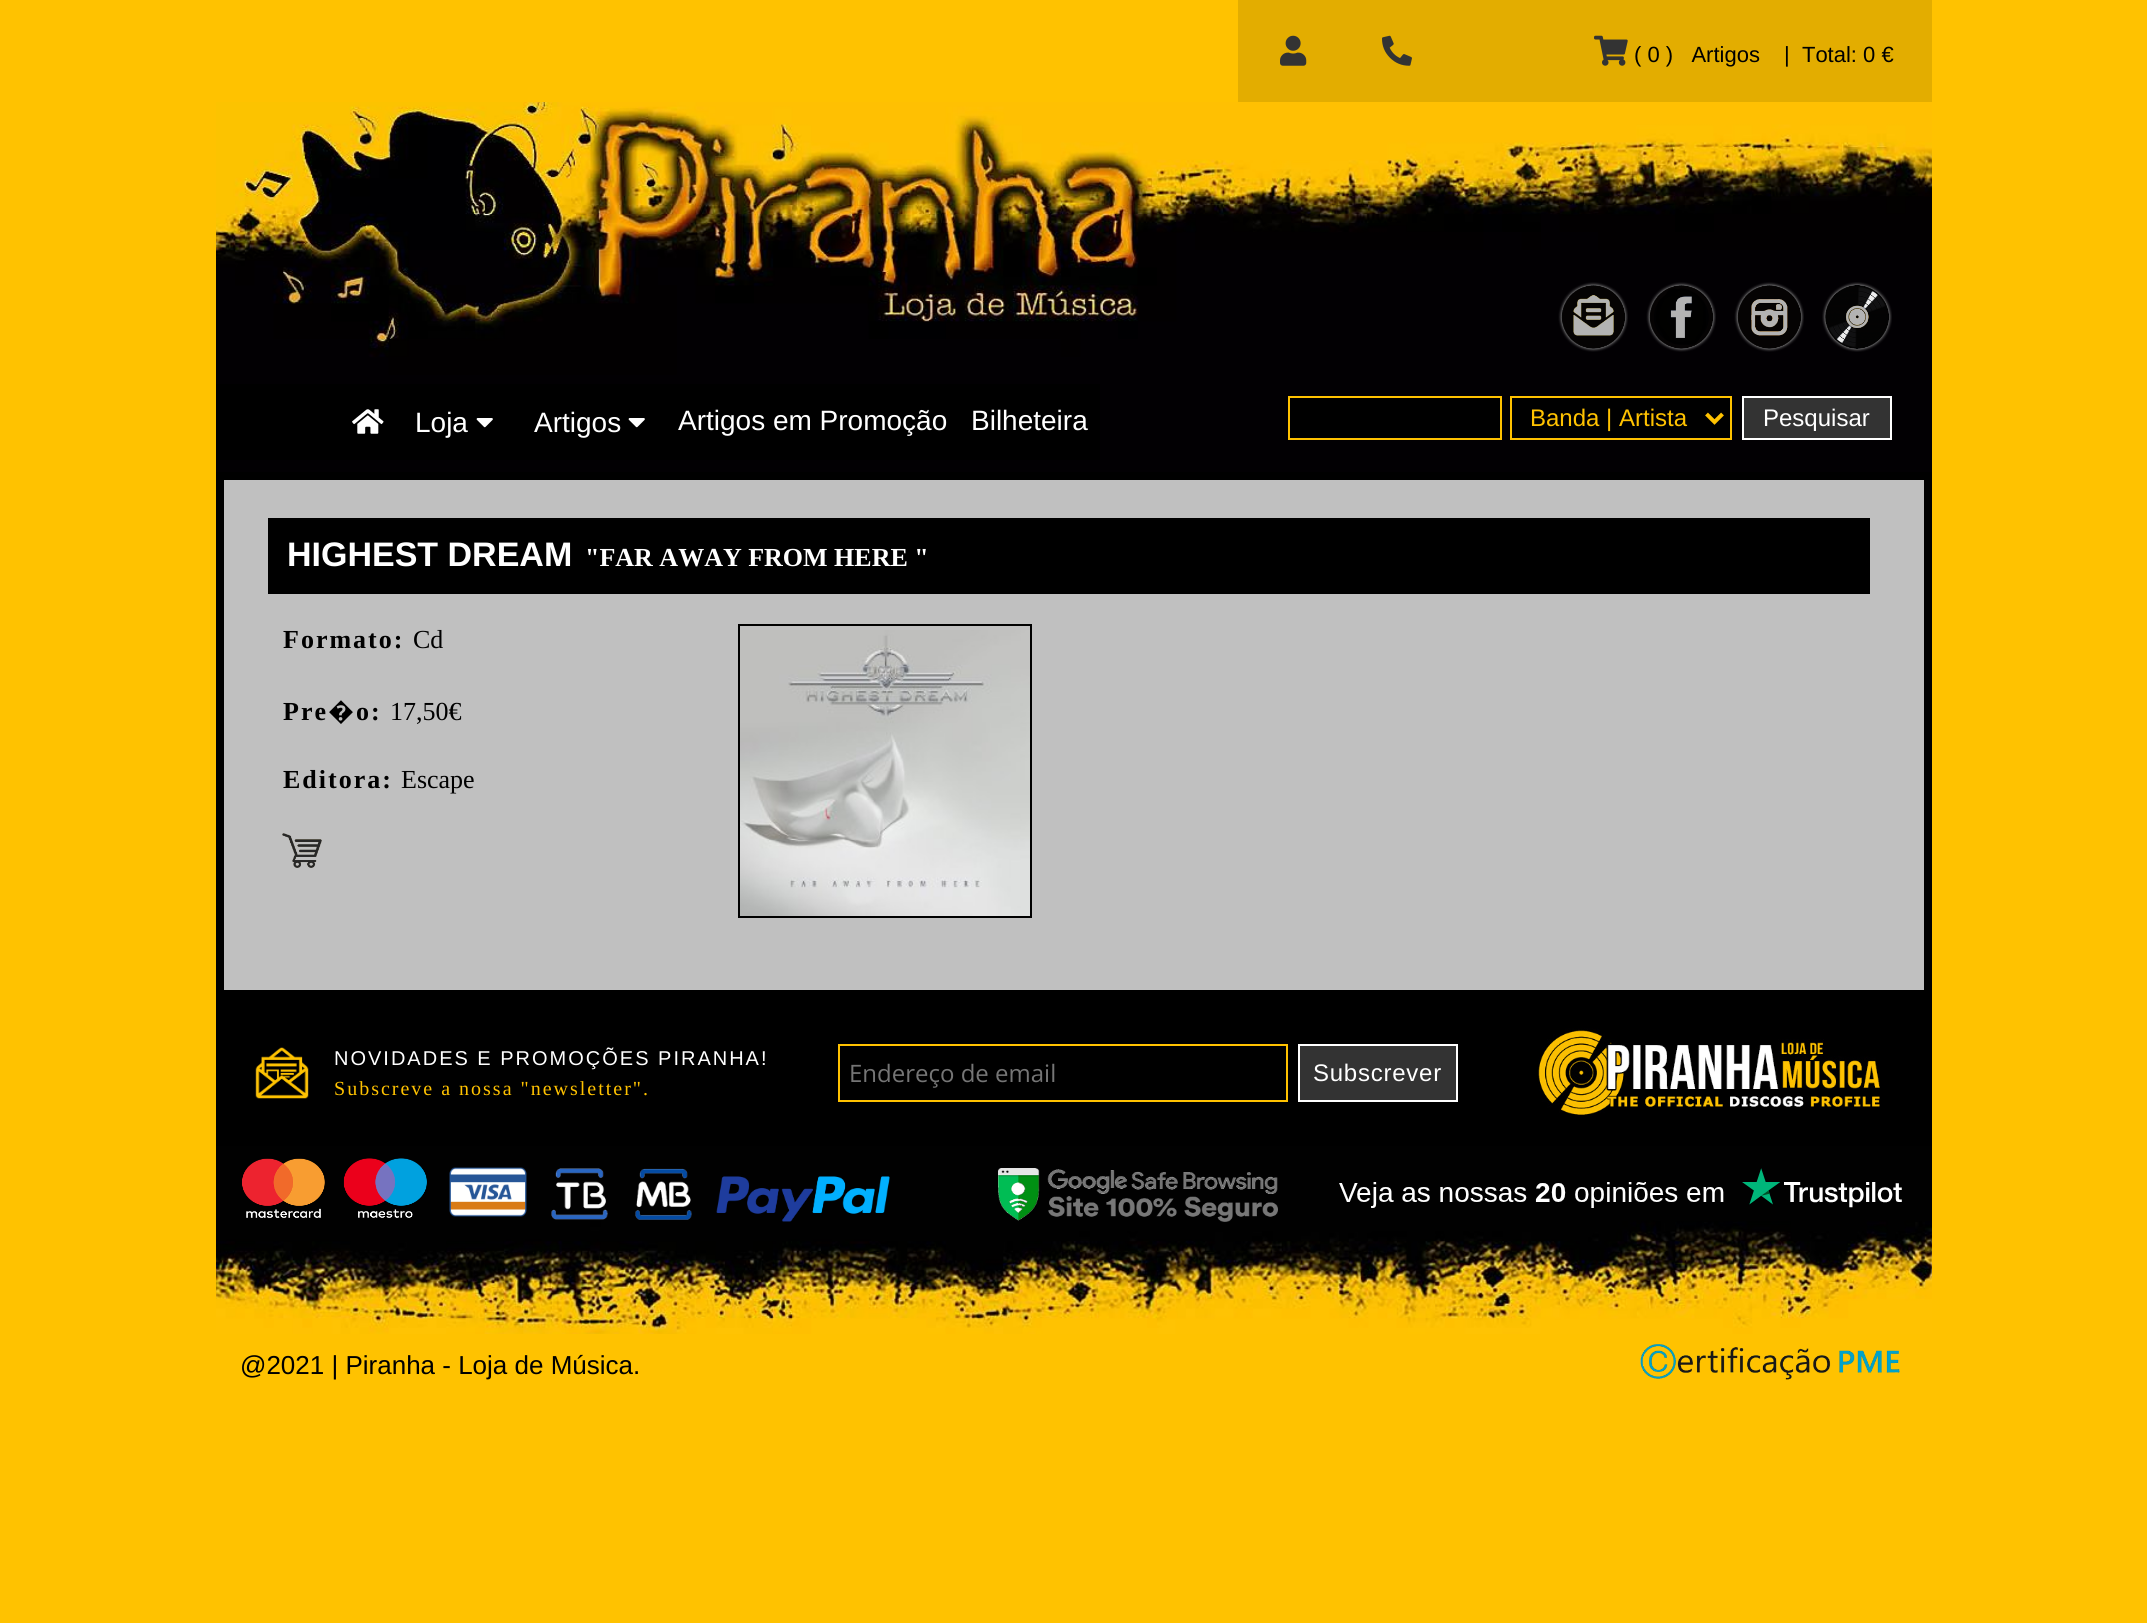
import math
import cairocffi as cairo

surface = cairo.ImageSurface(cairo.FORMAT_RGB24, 2147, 1623)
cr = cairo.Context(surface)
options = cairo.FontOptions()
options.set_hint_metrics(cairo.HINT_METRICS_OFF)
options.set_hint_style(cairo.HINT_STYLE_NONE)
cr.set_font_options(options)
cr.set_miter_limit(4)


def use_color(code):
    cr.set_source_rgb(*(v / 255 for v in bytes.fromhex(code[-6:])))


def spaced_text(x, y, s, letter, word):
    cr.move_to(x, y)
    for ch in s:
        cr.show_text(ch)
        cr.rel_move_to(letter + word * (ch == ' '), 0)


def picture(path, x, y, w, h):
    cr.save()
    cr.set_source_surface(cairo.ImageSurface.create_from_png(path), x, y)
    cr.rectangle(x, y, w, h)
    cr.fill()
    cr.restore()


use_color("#ffc200")
cr.paint()
use_color("#e3ad00")
cr.rectangle(1238, 0, 694, 102)
cr.fill()
picture("img1.png", 1280, 35, 27, 31)
picture("img2.png", 1382, 35, 30, 31)
picture("img3.png", 1594, 35, 34, 31)
cr.select_font_face("Liberation Sans")
cr.set_font_size(22)
use_color("#000000")
cr.move_to(1634, 62)
cr.show_text("( 0 )   Artigos")
cr.move_to(1784, 62)
cr.show_text("|  Total: 0 €")
picture("img4.png", 216, 102, 1716, 370)
cr.rectangle(216, 384, 884, 76)
cr.fill()
picture("img5.png", 352, 409, 32, 25)
cr.set_font_size(28)
use_color("#ffffff")
cr.move_to(415, 432)
cr.show_text("Loja")
picture("img6.png", 476, 418, 17, 10)
cr.move_to(534, 432)
cr.show_text("Artigos")
picture("img6.png", 628, 418, 17, 10)
cr.move_to(678, 430)
cr.show_text("Artigos em Promoção")
cr.move_to(971, 430)
cr.show_text("Bilheteira")
picture("img7.png", 1558, 282, 70, 70)
picture("img8.png", 1646, 282, 70, 70)
picture("img9.png", 1734, 282, 70, 70)
picture("img10.png", 1822, 282, 70, 70)
use_color("#000000")
cr.rectangle(1289, 397, 212, 42)
cr.fill_preserve()
use_color("#ffc200")
cr.stroke()
use_color("#000000")
cr.rectangle(1511, 397, 220, 42)
cr.fill_preserve()
use_color("#ffc200")
cr.stroke()
cr.new_path()
cr.move_to(1706.5, 414)
cr.line_to(1714.5, 422)
cr.line_to(1722.5, 414)
cr.set_line_width(4)
cr.stroke()
cr.set_font_size(24)
cr.move_to(1530, 426)
cr.show_text("Banda | Artista")
use_color("#333333")
cr.rectangle(1743, 397, 148, 42)
cr.fill_preserve()
use_color("#ffffff")
cr.set_line_width(2)
cr.stroke()
cr.move_to(1763, 426)
cr.show_text("Pesquisar")
use_color("#000000")
cr.rectangle(216, 472, 1716, 674)
cr.fill()
use_color("#c0c0c0")
cr.rectangle(224, 480, 1700, 510)
cr.fill()
use_color("#000000")
cr.rectangle(268, 518, 1602, 76)
cr.fill()
cr.select_font_face("Liberation Sans", cairo.FONT_SLANT_NORMAL, cairo.FONT_WEIGHT_BOLD)
cr.set_font_size(34)
use_color("#ffffff")
cr.move_to(287, 566)
cr.show_text("HIGHEST DREAM")
cr.select_font_face("Liberation Serif", cairo.FONT_SLANT_NORMAL, cairo.FONT_WEIGHT_BOLD)
cr.set_font_size(26)
cr.move_to(585, 566)
cr.show_text("\"FAR AWAY FROM HERE \"")
use_color("#000000")
spaced_text(283, 648, "Formato:", 2, 0)
cr.select_font_face("Liberation Serif")
cr.move_to(413, 648)
cr.show_text("Cd")
cr.select_font_face("Liberation Serif", cairo.FONT_SLANT_NORMAL, cairo.FONT_WEIGHT_BOLD)
spaced_text(283, 720, "Pre", 2, 0)
cr.select_font_face("Noto Sans", cairo.FONT_SLANT_NORMAL, cairo.FONT_WEIGHT_BOLD)
spaced_text(328, 720, "�", 2, 0)
cr.select_font_face("Liberation Serif", cairo.FONT_SLANT_NORMAL, cairo.FONT_WEIGHT_BOLD)
spaced_text(356, 720, "o:", 2, 0)
cr.select_font_face("Liberation Serif")
cr.move_to(390, 720)
cr.show_text("17,50€")
cr.select_font_face("Liberation Serif", cairo.FONT_SLANT_NORMAL, cairo.FONT_WEIGHT_BOLD)
spaced_text(283, 788, "Editora:", 2, 0)
cr.select_font_face("Liberation Serif")
cr.move_to(401, 788)
cr.show_text("Escape")
picture("img11.png", 282, 833, 40, 35)
cr.rectangle(739, 625, 292, 292)
cr.stroke()
picture("img12.png", 740, 630, 290, 286)
picture("img13.png", 255, 1047, 54, 52)
cr.select_font_face("Liberation Sans")
cr.set_font_size(20)
use_color("#ffffff")
spaced_text(334, 1065, "NOVIDADES E PROMOÇÕES PIRANHA!", 2, 0)
cr.select_font_face("Liberation Serif")
use_color("#ffc200")
spaced_text(334, 1095, "Subscreve a nossa \"newsletter\".", 2, 0)
cr.rectangle(839, 1045, 448, 56)
cr.stroke()
cr.select_font_face("Open Sans")
cr.set_font_size(24)
use_color("#757575")
cr.move_to(849, 1082)
cr.show_text("Endereço de email")
use_color("#333333")
cr.rectangle(1299, 1045, 158, 56)
cr.fill_preserve()
use_color("#ffffff")
cr.stroke()
cr.select_font_face("Liberation Sans")
spaced_text(1313, 1081, "Subscrever", 0.75, 0)
picture("img14.png", 1538, 1028, 342, 89)
picture("img15.png", 216, 1146, 1716, 188)
picture("img16.png", 242, 1158, 83, 60)
picture("img17.png", 343, 1158, 84, 60)
picture("img18.png", 449, 1167, 78, 50)
picture("img19.png", 551, 1168, 57, 52)
picture("img20.png", 635, 1168, 57, 52)
picture("img21.png", 716, 1176, 174, 46)
picture("img22.png", 998, 1168, 280, 54)
picture("img23.png", 1339, 1168, 563, 40)
cr.set_font_size(26)
use_color("#000000")
cr.move_to(240, 1374)
cr.show_text("@2021 | Piranha - Loja de Música.")
picture("img24.png", 1640, 1344, 260, 36)
surface.write_to_png("result.png")
